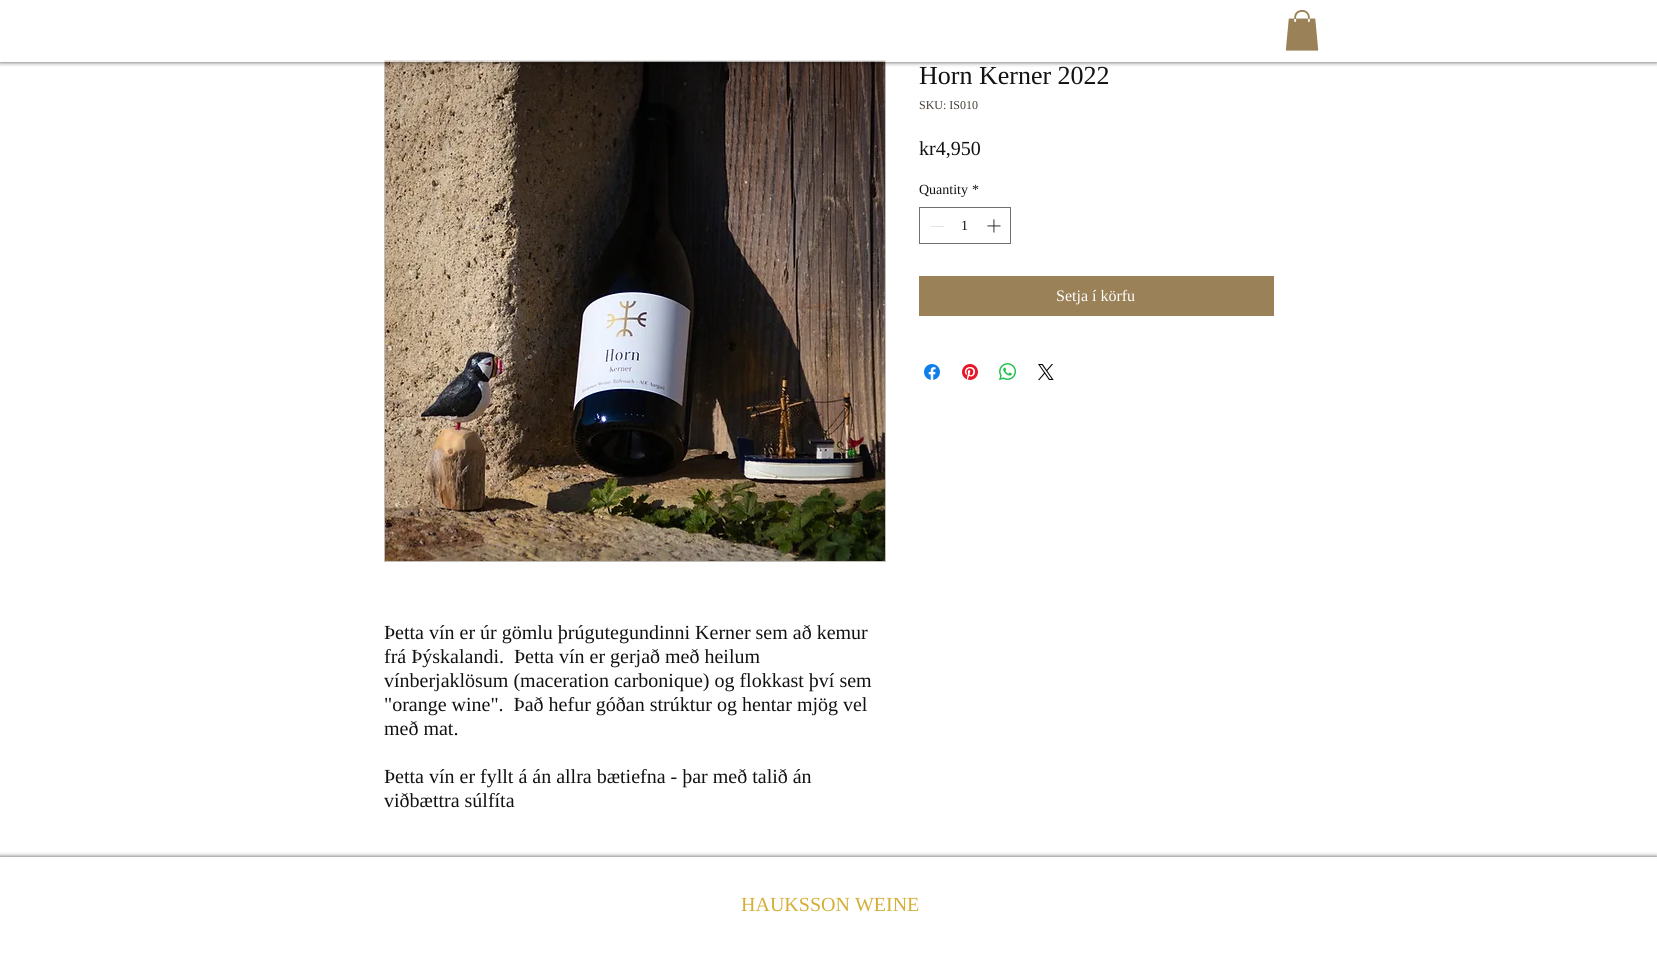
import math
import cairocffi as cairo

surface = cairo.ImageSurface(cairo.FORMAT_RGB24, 1657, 979)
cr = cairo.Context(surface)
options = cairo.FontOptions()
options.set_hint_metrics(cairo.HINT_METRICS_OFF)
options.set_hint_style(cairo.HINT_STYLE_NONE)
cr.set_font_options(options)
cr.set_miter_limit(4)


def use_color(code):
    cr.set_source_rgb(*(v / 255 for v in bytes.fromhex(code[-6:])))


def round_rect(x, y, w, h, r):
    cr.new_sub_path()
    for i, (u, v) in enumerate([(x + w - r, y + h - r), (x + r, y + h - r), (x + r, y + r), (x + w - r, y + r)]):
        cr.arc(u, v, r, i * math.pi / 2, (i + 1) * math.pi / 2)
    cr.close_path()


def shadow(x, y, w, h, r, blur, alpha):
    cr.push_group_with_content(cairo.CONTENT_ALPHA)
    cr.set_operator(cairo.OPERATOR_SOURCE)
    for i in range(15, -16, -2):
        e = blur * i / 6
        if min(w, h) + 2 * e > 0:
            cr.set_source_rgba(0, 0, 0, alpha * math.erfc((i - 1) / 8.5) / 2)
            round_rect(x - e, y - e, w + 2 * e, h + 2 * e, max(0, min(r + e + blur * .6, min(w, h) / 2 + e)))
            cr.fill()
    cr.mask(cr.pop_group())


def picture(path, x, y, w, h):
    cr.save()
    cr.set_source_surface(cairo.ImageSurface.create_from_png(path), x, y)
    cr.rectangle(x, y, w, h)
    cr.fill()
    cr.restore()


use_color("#ffffff")
cr.paint()
cr.rectangle(384.5, 60.5, 501, 501)
use_color("#c2bdb9")
cr.set_line_width(1)
cr.stroke()
picture("img7.png", 385, 61, 500, 500)
cr.save()
cr.rectangle(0, 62, 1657, 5)
cr.clip()
use_color("#000000")
shadow(0, 0, 1657, 62, 0, 2.5, 0.7)
cr.restore()
cr.set_source_rgba(1, 1, 1, 0.6)
cr.rectangle(384, 60, 502, 2)
cr.fill()
picture("img1.png", 1285, 10, 34, 41)
cr.select_font_face("Liberation Serif")
cr.set_font_size(26)
use_color("#131211")
cr.move_to(919, 84)
cr.show_text("Horn Kerner 2022")
cr.set_font_size(12)
use_color("#473e36")
cr.move_to(919, 109)
cr.show_text("SKU: IS010")
cr.set_font_size(20)
use_color("#131211")
cr.move_to(919, 155)
cr.show_text("kr4,950")
cr.set_font_size(14)
cr.move_to(919, 194)
cr.show_text("Quantity")
cr.move_to(972, 194)
cr.show_text("*")
cr.rectangle(919.5, 207.5, 91, 36)
use_color("#717170")
cr.stroke()
use_color("#e3e3e3")
cr.rectangle(931, 226, 13, 1)
cr.fill()
use_color("#131211")
cr.move_to(961, 230)
cr.show_text("1")
picture("img2.png", 987, 219, 14, 14)
use_color("#9b8158")
cr.rectangle(919, 276, 355, 40)
cr.fill()
cr.set_font_size(16)
use_color("#ffffff")
cr.move_to(1056, 301)
cr.show_text("Setja í körfu")
picture("img3.png", 924, 364, 16, 16)
picture("img4.png", 962, 364, 16, 16)
picture("img5.png", 999, 363, 17, 17)
picture("img6.png", 1038, 364, 16, 16)
cr.set_font_size(20)
use_color("#131211")
cr.move_to(384, 639)
cr.show_text("Þetta vín er úr gömlu þrúgutegundinni Kerner sem að kemur")
cr.move_to(384, 663)
cr.show_text("frá Þýskalandi.  Þetta vín er gerjað með heilum")
cr.move_to(384, 687)
cr.show_text("vínberjaklösum (maceration carbonique) og flokkast því sem")
cr.move_to(384, 711)
cr.show_text("\"orange wine\".  Það hefur góðan strúktur og hentar mjög vel")
cr.move_to(384, 735)
cr.show_text("með mat.")
cr.move_to(384, 783)
cr.show_text("Þetta vín er fyllt á án allra bætiefna - þar með talið án")
cr.move_to(384, 807)
cr.show_text("viðbættra súlfíta")
cr.save()
cr.rectangle(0, 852, 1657, 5)
cr.clip()
use_color("#000000")
shadow(0, 857, 1657, 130, 0, 2.5, 0.7)
cr.restore()
use_color("#d4af37")
cr.move_to(741, 911)
cr.show_text("HAUKSSON WEINE")
surface.write_to_png("result.png")
